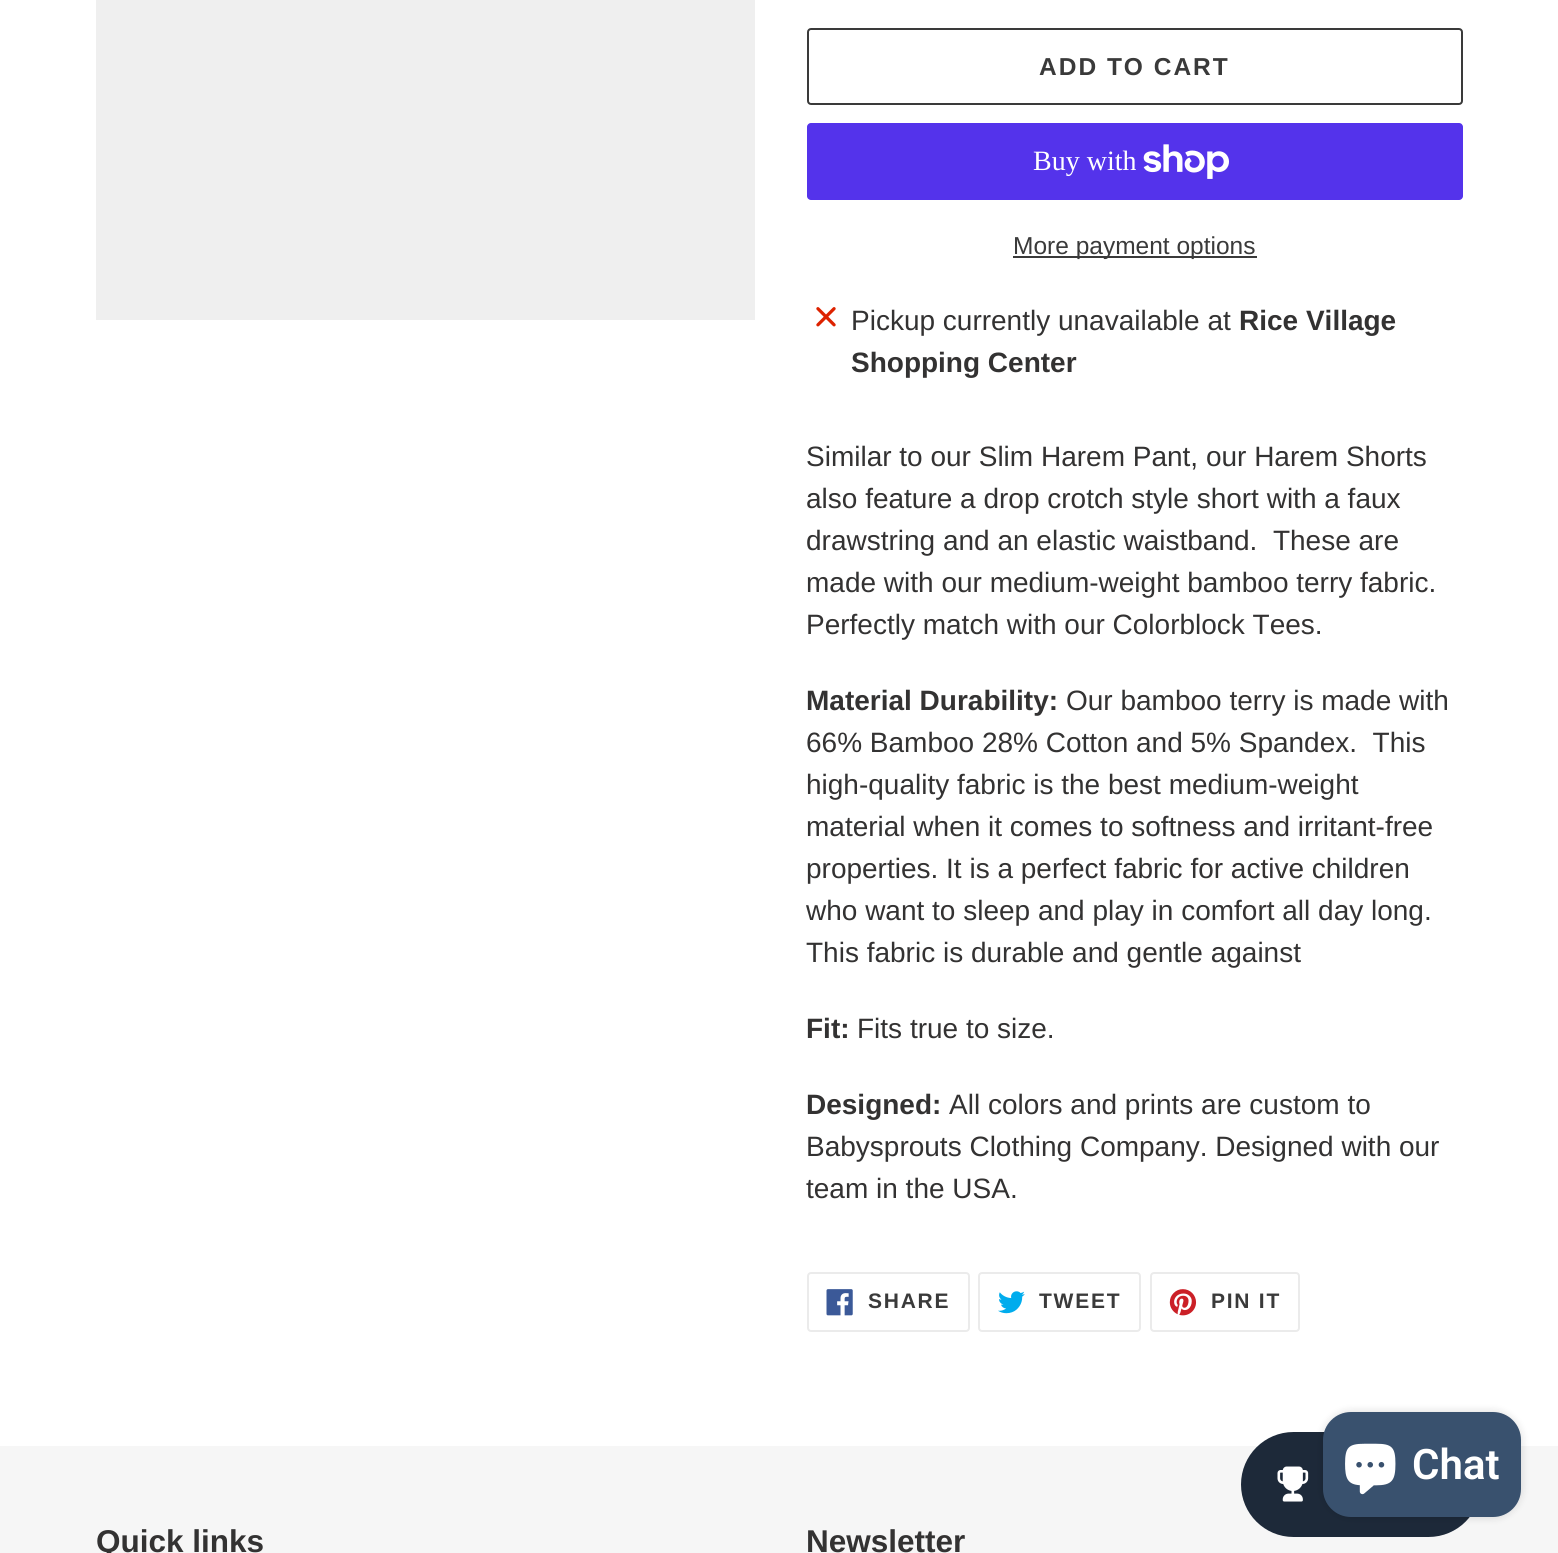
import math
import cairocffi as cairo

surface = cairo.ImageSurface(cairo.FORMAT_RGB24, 1558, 1553)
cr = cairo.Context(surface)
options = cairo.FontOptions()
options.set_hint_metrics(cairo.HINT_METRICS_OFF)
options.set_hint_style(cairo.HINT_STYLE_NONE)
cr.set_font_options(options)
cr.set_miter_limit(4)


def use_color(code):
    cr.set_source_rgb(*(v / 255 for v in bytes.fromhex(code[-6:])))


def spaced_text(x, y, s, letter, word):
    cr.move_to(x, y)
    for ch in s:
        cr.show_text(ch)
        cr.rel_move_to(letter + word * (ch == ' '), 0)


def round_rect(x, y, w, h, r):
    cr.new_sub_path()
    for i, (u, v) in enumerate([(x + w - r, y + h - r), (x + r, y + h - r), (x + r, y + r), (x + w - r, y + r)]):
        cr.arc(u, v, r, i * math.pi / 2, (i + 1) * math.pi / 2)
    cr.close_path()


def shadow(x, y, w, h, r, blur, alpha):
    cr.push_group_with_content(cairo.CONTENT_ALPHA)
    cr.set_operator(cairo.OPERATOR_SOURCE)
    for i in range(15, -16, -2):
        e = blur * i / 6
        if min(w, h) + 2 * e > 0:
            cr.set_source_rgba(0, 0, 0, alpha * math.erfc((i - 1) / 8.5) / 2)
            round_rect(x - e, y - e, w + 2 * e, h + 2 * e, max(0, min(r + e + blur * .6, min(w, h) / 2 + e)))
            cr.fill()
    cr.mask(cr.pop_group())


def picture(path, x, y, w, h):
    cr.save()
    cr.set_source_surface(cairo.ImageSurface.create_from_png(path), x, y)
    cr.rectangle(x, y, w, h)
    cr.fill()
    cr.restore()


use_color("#ffffff")
cr.paint()
use_color("#efefef")
cr.rectangle(96, 0, 659, 320)
cr.fill()
round_rect(808, 29, 654, 75, 3)
use_color("#3a3a3a")
cr.stroke()
cr.select_font_face("Liberation Sans", cairo.FONT_SLANT_NORMAL, cairo.FONT_WEIGHT_BOLD)
cr.set_font_size(24.5)
spaced_text(1039, 75, "ADD TO CART", 2, 0)
use_color("#5433eb")
round_rect(807, 123, 656, 77, 4)
cr.fill()
cr.select_font_face("Liberation Serif")
cr.set_font_size(28)
use_color("#ffffff")
cr.move_to(1033, 170)
cr.show_text("Buy with")
picture("img1.png", 1143, 144, 86, 35)
use_color("#3a3a3a")
cr.rectangle(1013, 256, 244, 2)
cr.fill()
cr.select_font_face("Liberation Sans")
cr.set_font_size(24.5)
cr.move_to(1013, 254)
cr.show_text("More payment options")
picture("img2.png", 816, 307, 20, 20)
cr.set_font_size(28)
use_color("#333232")
cr.move_to(851, 330)
cr.show_text("Pickup currently unavailable at")
cr.select_font_face("Liberation Sans", cairo.FONT_SLANT_NORMAL, cairo.FONT_WEIGHT_BOLD)
cr.move_to(1239, 330)
cr.show_text("Rice Village")
cr.move_to(851, 372)
cr.show_text("Shopping Center")
cr.select_font_face("Liberation Sans")
cr.move_to(806, 466)
cr.show_text("Similar to our Slim Harem Pant, our Harem Shorts")
cr.move_to(806, 508)
cr.show_text("also feature a drop crotch style short with a faux")
cr.move_to(806, 550)
cr.show_text("drawstring and an elastic waistband.  These are")
cr.move_to(806, 592)
cr.show_text("made with our medium-weight bamboo terry fabric.")
cr.move_to(806, 634)
cr.show_text("Perfectly match with our Colorblock Tees.")
cr.select_font_face("Liberation Sans", cairo.FONT_SLANT_NORMAL, cairo.FONT_WEIGHT_BOLD)
cr.move_to(806, 710)
cr.show_text("Material Durability:")
cr.select_font_face("Liberation Sans")
cr.move_to(1066, 710)
cr.show_text("Our bamboo terry is made with")
cr.move_to(806, 752)
cr.show_text("66% Bamboo 28% Cotton and 5% Spandex.  This")
cr.move_to(806, 794)
cr.show_text("high-quality fabric is the best medium-weight")
cr.move_to(806, 836)
cr.show_text("material when it comes to softness and irritant-free")
cr.move_to(806, 878)
cr.show_text("properties. It is a perfect fabric for active children")
cr.move_to(806, 920)
cr.show_text("who want to sleep and play in comfort all day long.")
cr.move_to(806, 962)
cr.show_text("This fabric is durable and gentle against")
cr.select_font_face("Liberation Sans", cairo.FONT_SLANT_NORMAL, cairo.FONT_WEIGHT_BOLD)
cr.move_to(806, 1038)
cr.show_text("Fit:")
cr.select_font_face("Liberation Sans")
cr.move_to(857, 1038)
cr.show_text("Fits true to size.")
cr.select_font_face("Liberation Sans", cairo.FONT_SLANT_NORMAL, cairo.FONT_WEIGHT_BOLD)
cr.move_to(806, 1114)
cr.show_text("Designed:")
cr.select_font_face("Liberation Sans")
cr.move_to(949, 1114)
cr.show_text("All colors and prints are custom to")
cr.move_to(806, 1156)
cr.show_text("Babysprouts Clothing Company. Designed with our")
cr.move_to(806, 1198)
cr.show_text("team in the USA.")
round_rect(808, 1273, 161, 58, 3)
use_color("#ebebeb")
cr.stroke()
picture("img3.png", 826, 1289, 27, 27)
cr.select_font_face("Liberation Sans", cairo.FONT_SLANT_NORMAL, cairo.FONT_WEIGHT_BOLD)
cr.set_font_size(21)
use_color("#3a3a3a")
spaced_text(868, 1308, "SHARE", 1.75, 0)
round_rect(979, 1273, 161, 58, 3)
use_color("#ebebeb")
cr.stroke()
picture("img4.png", 998, 1291, 27, 23)
use_color("#3a3a3a")
spaced_text(1039, 1308, "TWEET", 1.75, 0)
round_rect(1151, 1273, 148, 58, 3)
use_color("#ebebeb")
cr.stroke()
picture("img5.png", 1169, 1289, 28, 27)
use_color("#3a3a3a")
spaced_text(1211, 1308, "PIN IT", 1.75, 0)
use_color("#f6f6f6")
cr.rectangle(0, 1446, 1558, 107)
cr.fill()
cr.set_font_size(31.5)
use_color("#333232")
cr.move_to(96, 1552)
cr.show_text("Quick links")
cr.move_to(806, 1552)
cr.show_text("Newsletter")
use_color("#1d2939")
round_rect(1241, 1432, 240, 105, 52.5)
cr.fill()
picture("img6.png", 1277, 1466, 32, 36)
use_color("#000000")
shadow(1323, 1412, 198, 105, 28, 4.5, 0.15)
use_color("#39516e")
round_rect(1323, 1412, 198, 105, 28)
cr.fill()
picture("img7.png", 1345, 1443, 51, 52)
cr.select_font_face("Roboto SemiBold")
cr.set_font_size(42)
use_color("#ffffff")
cr.move_to(1412, 1479)
cr.show_text("Chat")
surface.write_to_png("result.png")
